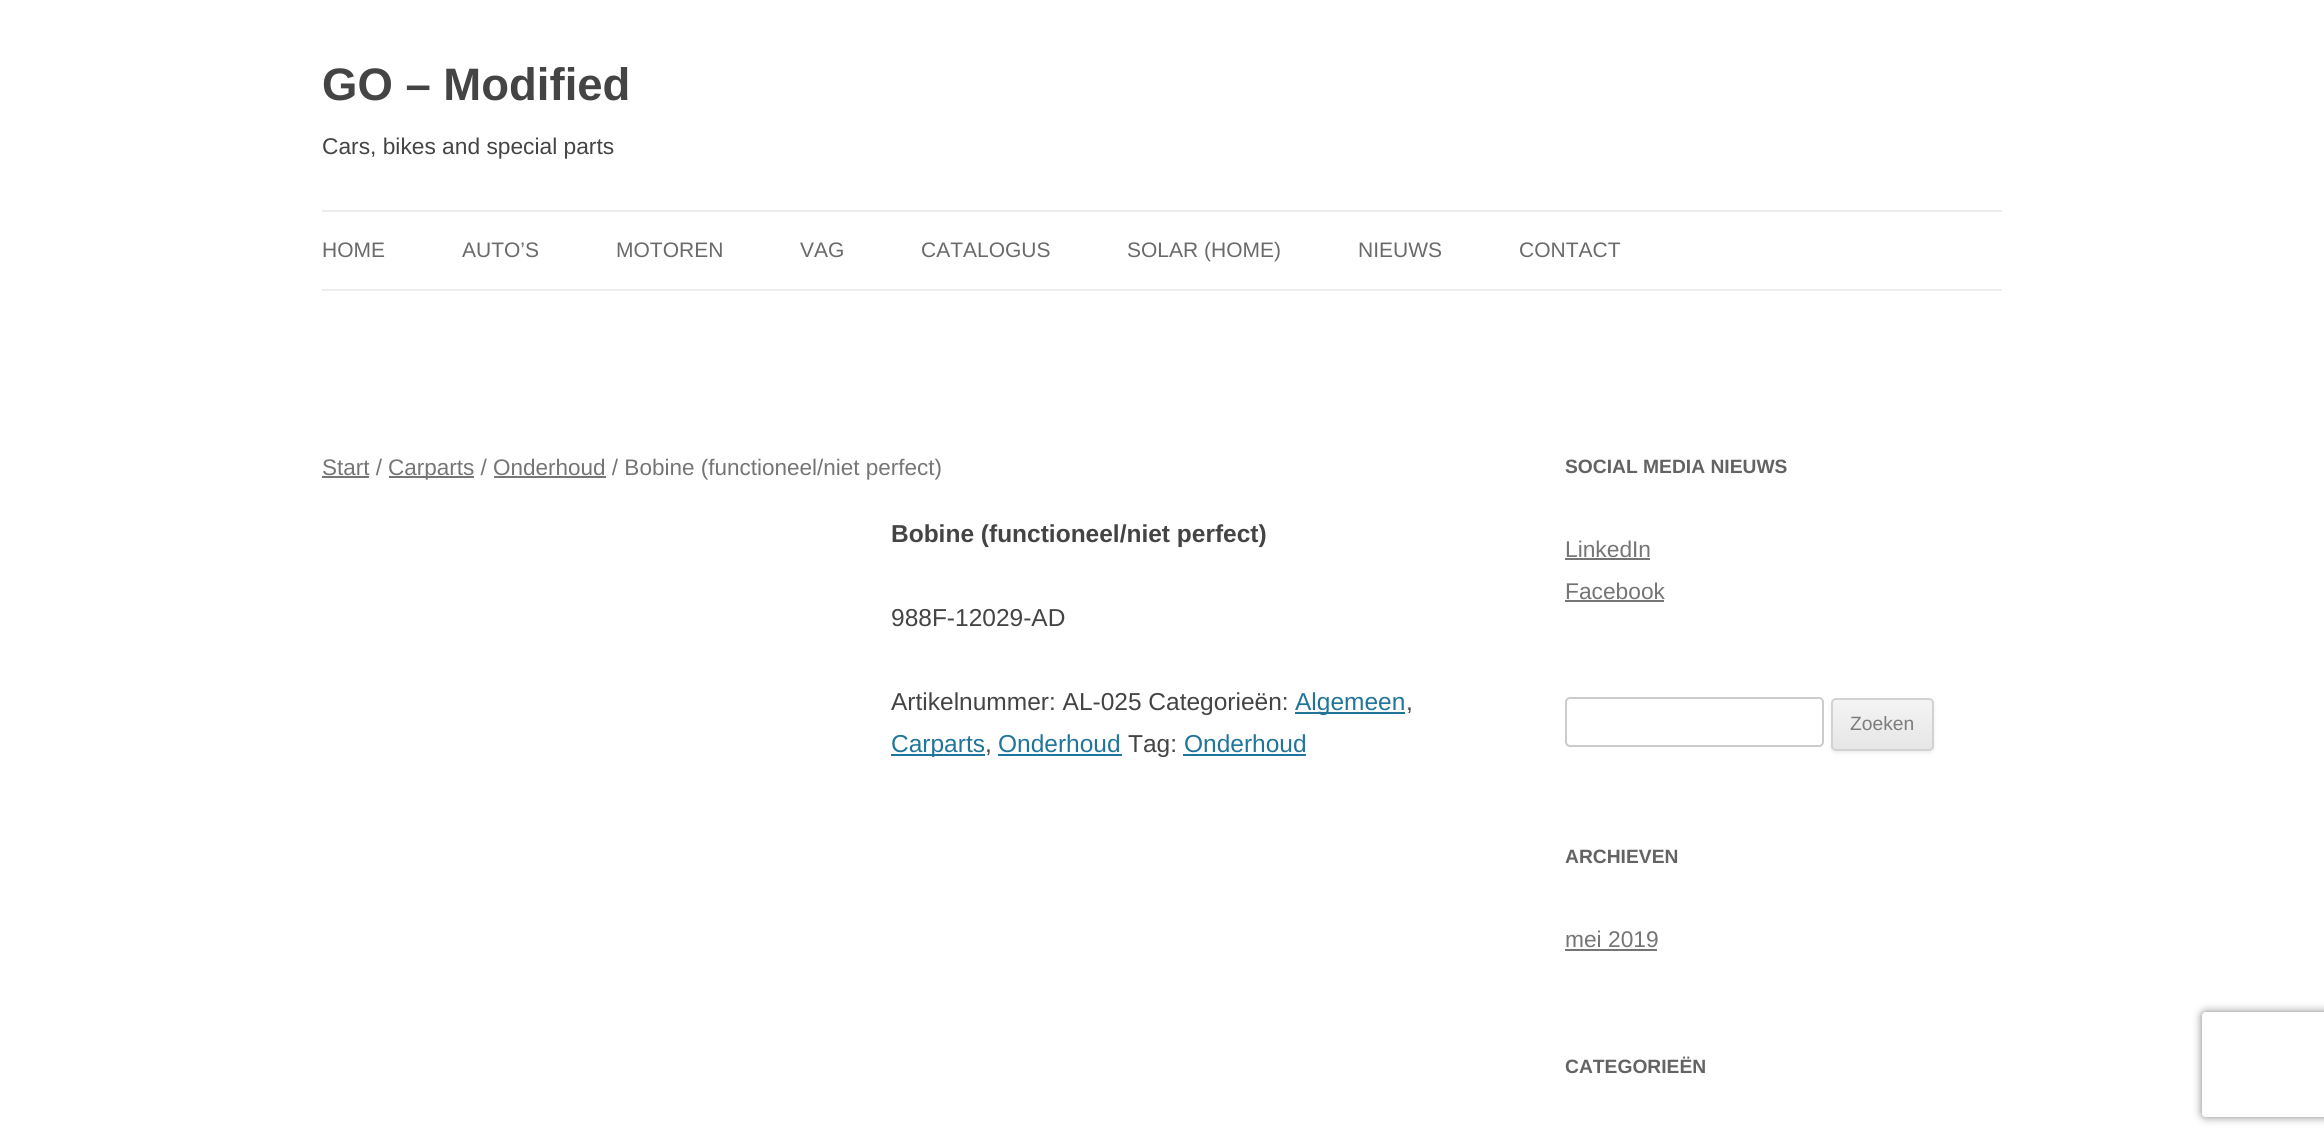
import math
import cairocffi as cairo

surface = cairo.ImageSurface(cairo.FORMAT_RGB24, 2324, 1141)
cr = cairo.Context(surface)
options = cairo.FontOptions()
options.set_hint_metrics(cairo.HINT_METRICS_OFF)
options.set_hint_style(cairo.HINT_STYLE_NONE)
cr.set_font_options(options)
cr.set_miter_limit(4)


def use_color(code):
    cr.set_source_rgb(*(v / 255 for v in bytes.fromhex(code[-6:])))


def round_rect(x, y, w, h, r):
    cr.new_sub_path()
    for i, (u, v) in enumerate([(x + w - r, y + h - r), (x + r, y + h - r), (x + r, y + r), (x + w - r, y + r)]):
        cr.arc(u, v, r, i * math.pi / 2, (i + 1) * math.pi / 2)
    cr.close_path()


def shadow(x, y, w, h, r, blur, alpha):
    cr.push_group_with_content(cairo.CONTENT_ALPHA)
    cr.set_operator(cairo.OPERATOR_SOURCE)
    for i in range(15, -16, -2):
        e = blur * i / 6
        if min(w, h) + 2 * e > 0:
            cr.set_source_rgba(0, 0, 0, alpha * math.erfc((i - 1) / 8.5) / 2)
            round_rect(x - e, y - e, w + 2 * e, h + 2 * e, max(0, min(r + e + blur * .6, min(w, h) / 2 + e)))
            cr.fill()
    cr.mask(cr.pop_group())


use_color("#ffffff")
cr.paint()
cr.select_font_face("Liberation Sans", cairo.FONT_SLANT_NORMAL, cairo.FONT_WEIGHT_BOLD)
cr.set_font_size(45.5)
use_color("#444444")
cr.move_to(322, 100)
cr.show_text("GO – Modified")
cr.select_font_face("Liberation Sans")
cr.set_font_size(22.75)
cr.move_to(322, 154)
cr.show_text("Cars, bikes and special parts")
use_color("#ededed")
cr.rectangle(322, 210, 1680, 2)
cr.fill()
cr.rectangle(322, 289, 1680, 2)
cr.fill()
cr.set_font_size(21)
use_color("#6a6a6a")
cr.move_to(322, 257)
cr.show_text("HOME")
cr.move_to(462, 257)
cr.show_text("AUTO’S")
cr.move_to(616, 257)
cr.show_text("MOTOREN")
cr.move_to(800, 257)
cr.show_text("VAG")
cr.move_to(921, 257)
cr.show_text("CATALOGUS")
cr.move_to(1127, 257)
cr.show_text("SOLAR (HOME)")
cr.move_to(1358, 257)
cr.show_text("NIEUWS")
cr.move_to(1519, 257)
cr.show_text("CONTACT")
cr.set_font_size(22.5)
use_color("#757575")
cr.move_to(322, 475)
cr.show_text("Start /")
use_color("#767676")
cr.rectangle(322, 476, 47, 2)
cr.fill()
cr.rectangle(389, 476, 85, 2)
cr.fill()
use_color("#757575")
cr.move_to(388, 475)
cr.show_text("Carparts / Onderhoud / Bobine (functioneel/niet perfect)")
use_color("#767676")
cr.rectangle(494, 476, 112, 2)
cr.fill()
cr.select_font_face("Liberation Sans", cairo.FONT_SLANT_NORMAL, cairo.FONT_WEIGHT_BOLD)
cr.set_font_size(24.5)
use_color("#444444")
cr.move_to(891, 542)
cr.show_text("Bobine (functioneel/niet perfect)")
cr.select_font_face("Liberation Sans")
cr.move_to(891, 626)
cr.show_text("988F-12029-AD")
cr.move_to(891, 710)
cr.show_text("Artikelnummer: AL-025 Categorieën:")
use_color("#21759b")
cr.rectangle(1295, 712, 110, 2)
cr.fill()
cr.move_to(1295, 710)
cr.show_text("Algemeen")
use_color("#444444")
cr.move_to(1406, 710)
cr.show_text(",")
use_color("#21759b")
cr.rectangle(891, 754, 94, 2)
cr.fill()
cr.move_to(891, 752)
cr.show_text("Carparts")
use_color("#444444")
cr.move_to(985, 752)
cr.show_text(",")
use_color("#21759b")
cr.rectangle(998, 754, 124, 2)
cr.fill()
cr.move_to(998, 752)
cr.show_text("Onderhoud")
use_color("#444444")
cr.move_to(1128, 752)
cr.show_text("Tag:")
use_color("#21759b")
cr.move_to(1184, 752)
cr.show_text("Onderhoud")
cr.rectangle(1183, 754, 123, 2)
cr.fill()
cr.select_font_face("Liberation Sans", cairo.FONT_SLANT_NORMAL, cairo.FONT_WEIGHT_BOLD)
cr.set_font_size(19.25)
use_color("#636363")
cr.move_to(1565, 473)
cr.show_text("SOCIAL MEDIA NIEUWS")
cr.select_font_face("Liberation Sans")
cr.set_font_size(22.75)
use_color("#757575")
cr.move_to(1565, 557)
cr.show_text("LinkedIn")
cr.rectangle(1565, 558, 85, 2)
cr.fill()
cr.move_to(1565, 599)
cr.show_text("Facebook")
cr.rectangle(1565, 600, 99, 2)
cr.fill()
round_rect(1566, 698, 257, 48, 4)
use_color("#cccccc")
cr.stroke()
use_color("#404040")
shadow(1831, 700, 103, 53, 5, 2, 0.1)
cr.save()
round_rect(1831, 698, 103, 53, 5)
cr.clip()
gradient = cairo.LinearGradient(1882, 700, 1882, 749)
gradient.add_color_stop_rgba(0, 0.957, 0.957, 0.957, 1)
gradient.add_color_stop_rgba(1, 0.902, 0.902, 0.902, 1)
cr.set_source(gradient)
cr.rectangle(1831, 700, 103, 49)
cr.fill()
cr.restore()
round_rect(1832, 699, 101, 51, 4)
use_color("#d2d2d2")
cr.stroke()
cr.set_font_size(19.25)
use_color("#7c7c7c")
cr.move_to(1850, 730)
cr.show_text("Zoeken")
cr.select_font_face("Liberation Sans", cairo.FONT_SLANT_NORMAL, cairo.FONT_WEIGHT_BOLD)
use_color("#636363")
cr.move_to(1565, 863)
cr.show_text("ARCHIEVEN")
cr.select_font_face("Liberation Sans")
cr.set_font_size(22.75)
use_color("#757575")
cr.move_to(1565, 947)
cr.show_text("mei 2019")
cr.rectangle(1565, 949, 92, 2)
cr.fill()
cr.select_font_face("Liberation Sans", cairo.FONT_SLANT_NORMAL, cairo.FONT_WEIGHT_BOLD)
cr.set_font_size(19.25)
use_color("#636363")
cr.move_to(1565, 1073)
cr.show_text("CATEGORIEËN")
cr.save()
cr.set_fill_rule(cairo.FILL_RULE_EVEN_ODD)
cr.new_path()
cr.move_to(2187, 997)
cr.line_to(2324, 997)
cr.line_to(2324, 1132)
cr.line_to(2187, 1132)
cr.close_path()
cr.move_to(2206, 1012)
cr.line_to(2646, 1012)
cr.curve_to(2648, 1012, 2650, 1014, 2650, 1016)
cr.line_to(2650, 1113)
cr.curve_to(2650, 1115, 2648, 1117, 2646, 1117)
cr.line_to(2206, 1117)
cr.curve_to(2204, 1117, 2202, 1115, 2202, 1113)
cr.line_to(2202, 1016)
cr.curve_to(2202, 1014, 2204, 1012, 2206, 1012)
cr.close_path()
cr.clip()
use_color("#808080")
shadow(2202, 1012, 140, 105, 4, 4.5, 1)
cr.restore()
surface.write_to_png("result.png")
